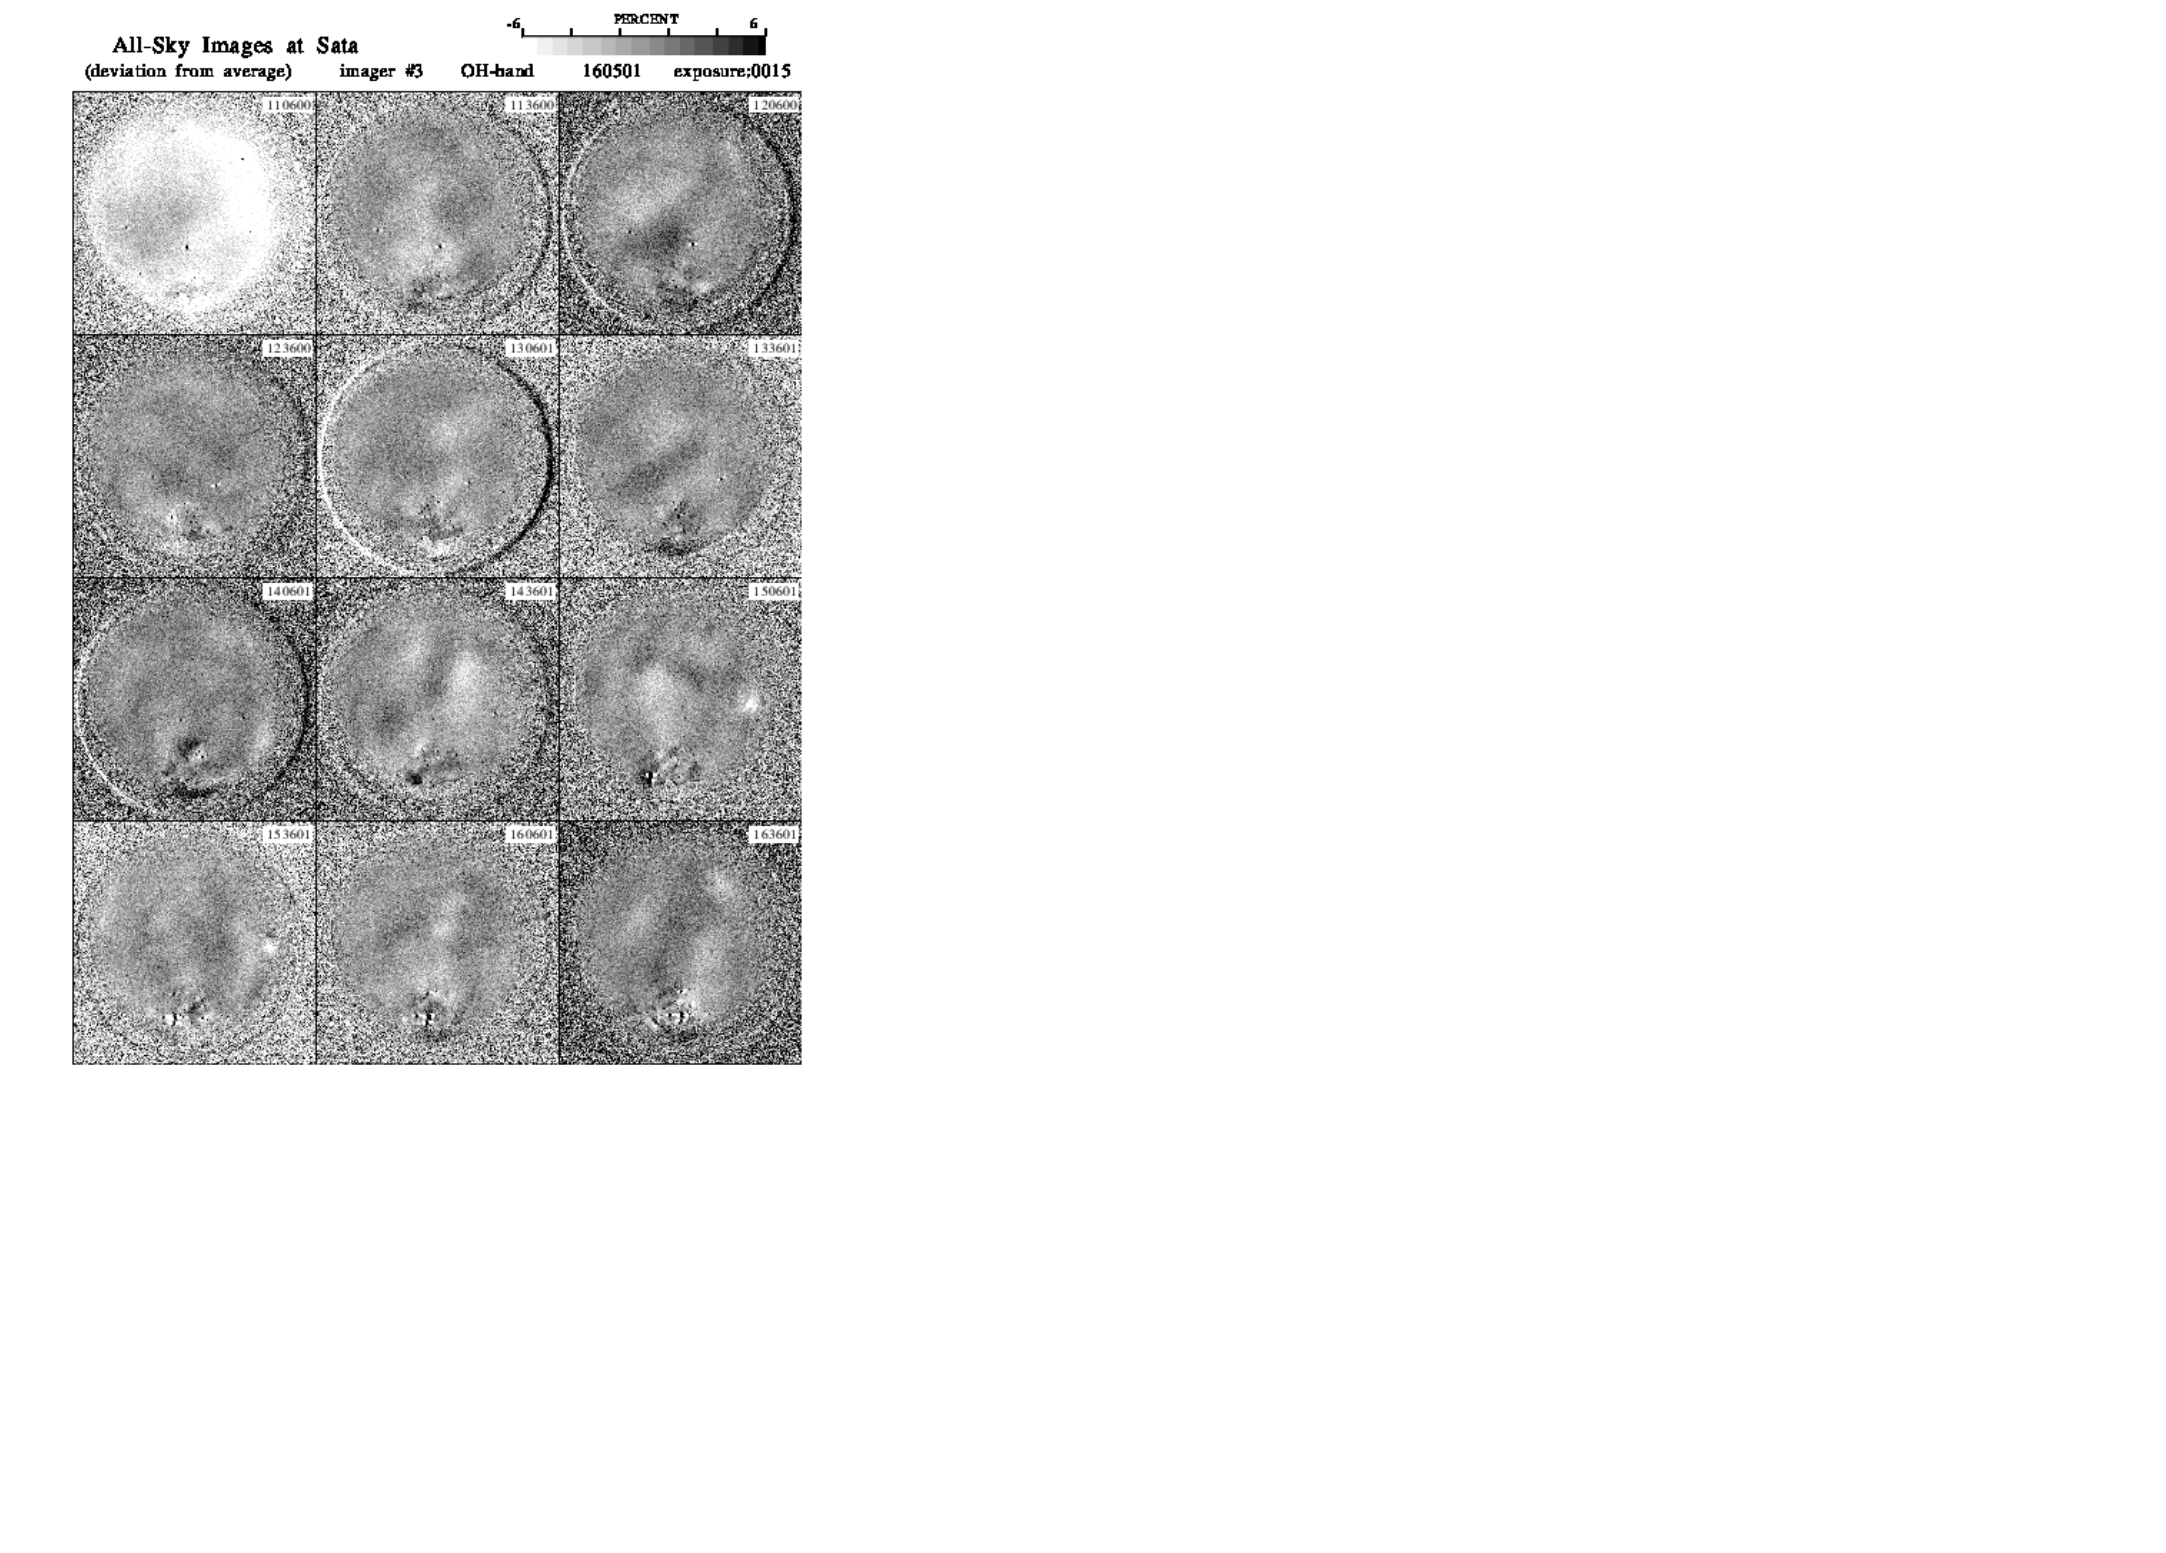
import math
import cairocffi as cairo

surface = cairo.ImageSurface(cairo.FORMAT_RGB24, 2166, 1553)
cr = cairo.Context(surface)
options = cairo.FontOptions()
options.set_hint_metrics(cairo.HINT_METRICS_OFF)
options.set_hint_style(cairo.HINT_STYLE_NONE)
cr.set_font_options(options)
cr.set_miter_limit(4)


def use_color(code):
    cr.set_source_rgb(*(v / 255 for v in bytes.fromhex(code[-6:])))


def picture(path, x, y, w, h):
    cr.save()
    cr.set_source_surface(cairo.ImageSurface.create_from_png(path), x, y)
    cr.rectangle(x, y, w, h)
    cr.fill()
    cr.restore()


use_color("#ffffff")
cr.paint()
picture("img1.png", 72, 13, 730, 1052)
surface.write_to_png("result.png")
